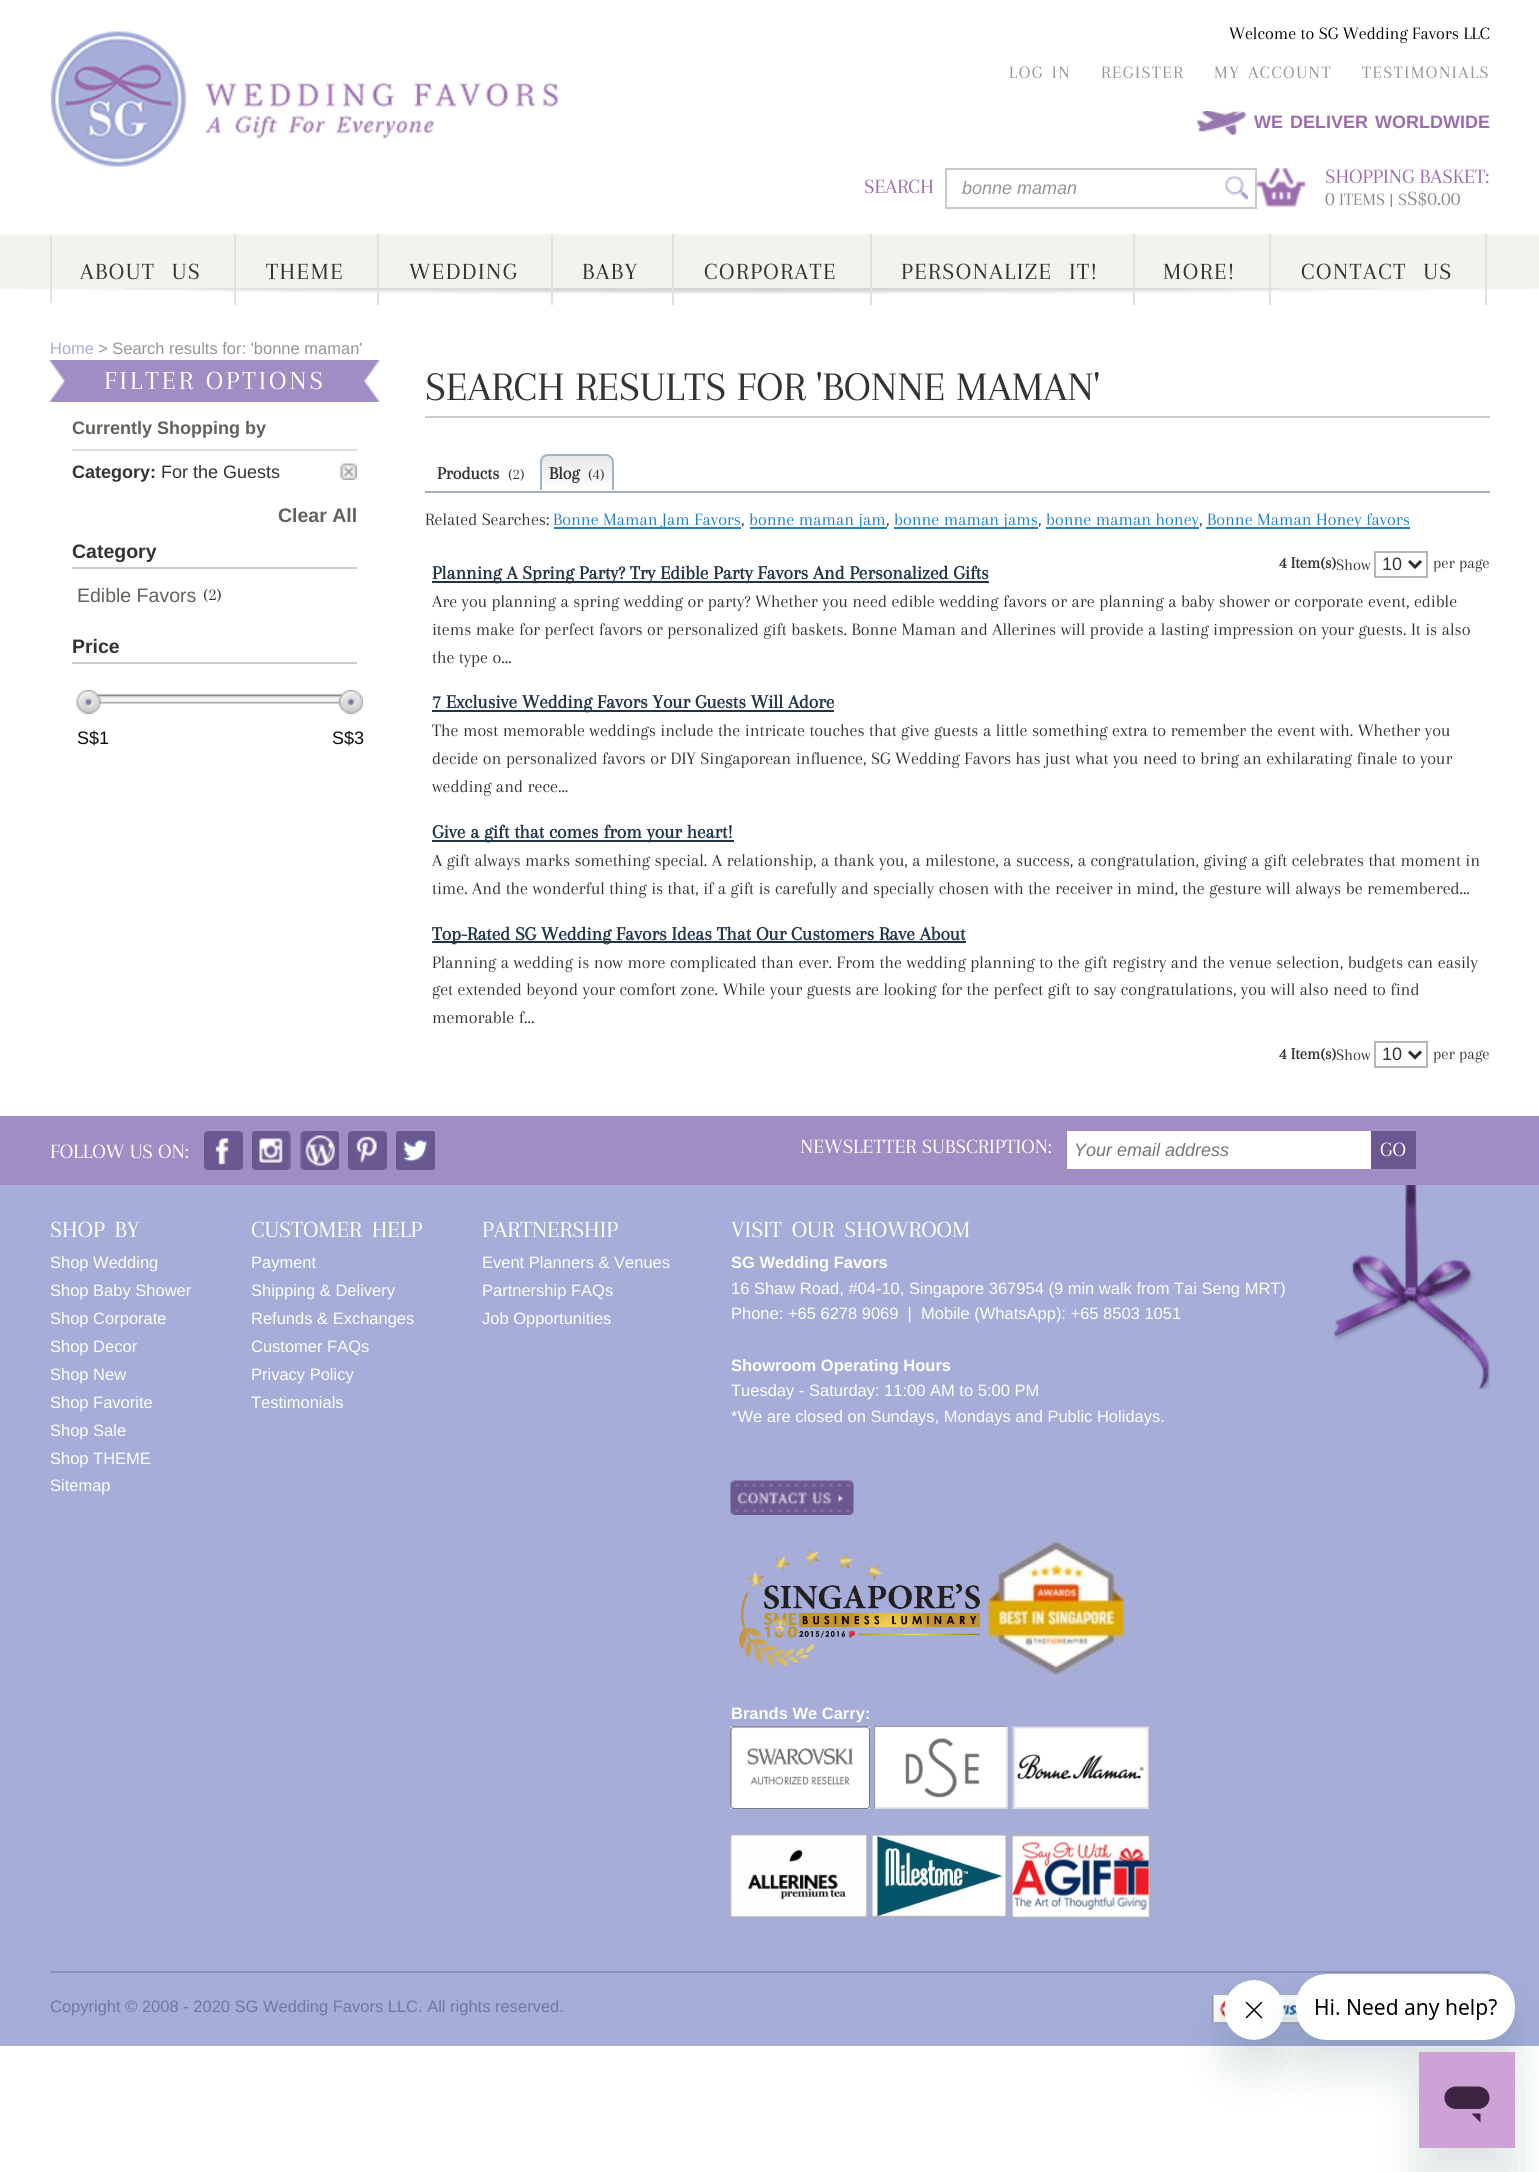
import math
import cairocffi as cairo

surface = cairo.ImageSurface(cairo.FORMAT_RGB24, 1539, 2172)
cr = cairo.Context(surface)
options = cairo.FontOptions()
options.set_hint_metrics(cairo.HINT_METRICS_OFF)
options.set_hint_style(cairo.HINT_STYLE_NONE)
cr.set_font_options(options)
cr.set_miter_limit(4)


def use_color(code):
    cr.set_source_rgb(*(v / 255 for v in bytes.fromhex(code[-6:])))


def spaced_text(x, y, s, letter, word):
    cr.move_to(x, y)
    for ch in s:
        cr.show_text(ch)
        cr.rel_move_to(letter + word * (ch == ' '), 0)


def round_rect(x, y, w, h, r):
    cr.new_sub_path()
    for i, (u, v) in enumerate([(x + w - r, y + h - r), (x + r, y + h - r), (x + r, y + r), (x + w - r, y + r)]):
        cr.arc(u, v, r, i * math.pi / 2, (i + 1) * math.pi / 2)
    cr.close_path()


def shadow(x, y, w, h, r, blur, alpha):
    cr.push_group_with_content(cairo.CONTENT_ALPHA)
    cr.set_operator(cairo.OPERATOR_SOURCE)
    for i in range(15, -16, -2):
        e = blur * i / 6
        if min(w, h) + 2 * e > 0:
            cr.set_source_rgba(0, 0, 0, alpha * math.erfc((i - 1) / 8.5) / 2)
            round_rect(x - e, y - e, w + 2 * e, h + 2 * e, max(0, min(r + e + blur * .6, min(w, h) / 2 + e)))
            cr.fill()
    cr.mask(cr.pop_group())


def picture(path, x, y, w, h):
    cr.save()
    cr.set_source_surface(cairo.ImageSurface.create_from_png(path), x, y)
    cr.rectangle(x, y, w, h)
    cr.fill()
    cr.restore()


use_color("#ffffff")
cr.paint()
picture("img1.png", 50, 31, 509, 136)
cr.select_font_face("Arapey")
cr.set_font_size(18)
use_color("#000000")
cr.move_to(1229, 39)
cr.show_text("Welcome to SG Wedding Favors LLC")
use_color("#959595")
spaced_text(1009, 78, "LOG IN", 1.5, 2)
spaced_text(1101, 78, "REGISTER", 1.5, 0)
spaced_text(1214, 78, "MY ACCOUNT", 1.5, 2)
spaced_text(1362, 78, "TESTIMONIALS", 1.5, 0)
picture("img2.png", 1197, 111, 50, 24)
cr.select_font_face("Liberation Sans", cairo.FONT_SLANT_NORMAL, cairo.FONT_WEIGHT_BOLD)
use_color("#9c6dae")
spaced_text(1254, 128, "WE DELIVER WORLDWIDE", 0, 2)
cr.select_font_face("Arapey")
cr.set_font_size(21)
cr.move_to(864, 193)
cr.show_text("SEARCH")
cr.rectangle(946, 169, 310, 39)
use_color("#cacaca")
cr.stroke()
cr.select_font_face("Liberation Sans", cairo.FONT_SLANT_ITALIC)
cr.set_font_size(18)
use_color("#959595")
cr.move_to(962, 194)
cr.show_text("bonne maman")
picture("img3.png", 1225, 175, 23, 25)
picture("img4.png", 1257, 168, 50, 39)
cr.select_font_face("Arapey")
cr.set_font_size(21)
use_color("#9c6dae")
cr.move_to(1325, 183)
cr.show_text("SHOPPING BASKET:")
use_color("#898989")
cr.move_to(1325, 205)
cr.show_text("0")
cr.set_font_size(18)
cr.move_to(1339, 205)
cr.show_text("ITEMS | S")
cr.set_font_size(21)
cr.move_to(1407, 205)
cr.show_text("S$0.00")
picture("img5.png", 0, 234, 1539, 60)
use_color("#e3e1dd")
cr.rectangle(50, 236, 2, 67)
cr.fill()
cr.rectangle(234, 234, 2, 71)
cr.fill()
cr.set_font_size(24)
use_color("#333333")
spaced_text(80, 279, "ABOUT US", 1.5, 9)
use_color("#e3e1dd")
cr.rectangle(377, 234, 2, 71)
cr.fill()
use_color("#333333")
spaced_text(266, 279, "THEME", 1.5, 0)
use_color("#e3e1dd")
cr.rectangle(551, 234, 2, 71)
cr.fill()
use_color("#333333")
spaced_text(409, 279, "WEDDING", 1.5, 0)
use_color("#e3e1dd")
cr.rectangle(672, 234, 2, 71)
cr.fill()
use_color("#333333")
spaced_text(582, 279, "BABY", 1.5, 0)
use_color("#e3e1dd")
cr.rectangle(870, 234, 2, 71)
cr.fill()
use_color("#333333")
spaced_text(704, 279, "CORPORATE", 1.5, 0)
use_color("#e3e1dd")
cr.rectangle(1133, 234, 2, 71)
cr.fill()
use_color("#333333")
spaced_text(901, 279, "PERSONALIZE IT!", 1.5, 9)
use_color("#e3e1dd")
cr.rectangle(1269, 234, 2, 71)
cr.fill()
use_color("#333333")
spaced_text(1163, 279, "MORE!", 1.5, 0)
use_color("#e3e1dd")
cr.rectangle(1485, 234, 2, 71)
cr.fill()
use_color("#333333")
spaced_text(1301, 279, "CONTACT US", 1.5, 9)
cr.select_font_face("Liberation Sans")
cr.set_font_size(16.5)
use_color("#a5add8")
cr.move_to(50, 354)
cr.show_text("Home")
use_color("#959595")
cr.move_to(98, 354)
cr.show_text("> Search results for: 'bonne maman'")
picture("img6.png", 49, 360, 331, 42)
cr.select_font_face("Arapey")
cr.set_font_size(27)
use_color("#ffffff")
spaced_text(104, 389, "FILTER OPTIONS", 3, 0)
use_color("#dddddd")
cr.rectangle(72, 449, 285, 2)
cr.fill()
cr.select_font_face("Liberation Sans", cairo.FONT_SLANT_NORMAL, cairo.FONT_WEIGHT_BOLD)
cr.set_font_size(18)
use_color("#63615a")
cr.move_to(72, 434)
cr.show_text("Currently Shopping by")
use_color("#333333")
cr.move_to(72, 478)
cr.show_text("Category:")
cr.select_font_face("Liberation Sans")
cr.move_to(161, 478)
cr.show_text("For the Guests")
picture("img7.png", 340, 463, 17, 17)
cr.select_font_face("Liberation Sans", cairo.FONT_SLANT_NORMAL, cairo.FONT_WEIGHT_BOLD)
cr.set_font_size(19.5)
use_color("#63615a")
cr.move_to(278, 522)
cr.show_text("Clear All")
use_color("#cccccc")
cr.rectangle(72, 567, 285, 2)
cr.fill()
use_color("#333333")
cr.move_to(72, 558)
cr.show_text("Category")
cr.select_font_face("Liberation Sans")
use_color("#63615a")
cr.move_to(77, 602)
cr.show_text("Edible Favors")
cr.select_font_face("Arapey")
cr.set_font_size(18)
use_color("#333333")
cr.move_to(203, 600)
cr.show_text("(2)")
use_color("#cccccc")
cr.rectangle(72, 662, 285, 2)
cr.fill()
cr.select_font_face("Liberation Sans", cairo.FONT_SLANT_NORMAL, cairo.FONT_WEIGHT_BOLD)
cr.set_font_size(19.5)
use_color("#333333")
cr.move_to(72, 653)
cr.show_text("Price")
picture("img8.png", 95, 694, 249, 10)
picture("img9.png", 76, 690, 25, 24)
picture("img10.png", 339, 690, 24, 24)
cr.select_font_face("Liberation Sans")
cr.set_font_size(18)
use_color("#0b0d0a")
cr.move_to(77, 744)
cr.show_text("S$1")
cr.move_to(332, 744)
cr.show_text("S$3")
use_color("#cccccc")
cr.rectangle(425, 416, 1065, 2)
cr.fill()
cr.select_font_face("Arapey")
cr.set_font_size(42)
use_color("#333333")
cr.move_to(425, 400)
cr.show_text("SEARCH RESULTS FOR 'BONNE MAMAN'")
use_color("#a0b3c3")
cr.rectangle(425, 491, 1065, 2)
cr.fill()
cr.select_font_face("Arapey", cairo.FONT_SLANT_NORMAL, cairo.FONT_WEIGHT_BOLD)
cr.set_font_size(18)
use_color("#333333")
cr.move_to(437, 479)
cr.show_text("Products")
cr.select_font_face("Arapey")
cr.set_font_size(16)
cr.move_to(508, 479)
cr.show_text("(2)")
cr.save()
cr.new_path()
cr.move_to(548, 455)
cr.line_to(606, 455)
cr.curve_to(610.5, 455, 614, 458.5, 614, 463)
cr.line_to(614, 491)
cr.line_to(540, 491)
cr.line_to(540, 463)
cr.curve_to(540, 458.5, 543.5, 455, 548, 455)
cr.close_path()
cr.clip()
gradient = cairo.LinearGradient(577, 456, 577, 491)
gradient.add_color_stop_rgba(0, 0.91, 0.91, 0.91, 1)
gradient.add_color_stop_rgba(1, 1, 1, 1, 1)
cr.set_source(gradient)
cr.rectangle(540, 456, 74, 35)
cr.fill()
cr.restore()
use_color("#a0b3c3")
cr.set_fill_rule(cairo.FILL_RULE_EVEN_ODD)
cr.new_path()
cr.move_to(548, 454)
cr.line_to(606, 454)
cr.curve_to(610, 454, 614, 458, 614, 462)
cr.line_to(614, 490)
cr.line_to(540, 490)
cr.line_to(540, 462)
cr.curve_to(540, 458, 543, 454, 548, 454)
cr.close_path()
cr.move_to(548, 456)
cr.line_to(606, 456)
cr.curve_to(609, 456, 612, 459, 612, 462)
cr.line_to(612, 490)
cr.line_to(542, 490)
cr.line_to(542, 462)
cr.curve_to(542, 459, 544, 456, 548, 456)
cr.close_path()
cr.fill()
cr.select_font_face("Arapey", cairo.FONT_SLANT_NORMAL, cairo.FONT_WEIGHT_BOLD)
cr.set_font_size(18)
use_color("#333333")
cr.move_to(549, 479)
cr.show_text("Blog")
cr.select_font_face("Arapey")
cr.set_font_size(16)
cr.move_to(588, 479)
cr.show_text("(4)")
cr.set_font_size(18)
cr.move_to(425, 525)
cr.show_text("Related Searches:")
use_color("#1e7ec8")
cr.rectangle(554, 527, 187, 2)
cr.fill()
cr.move_to(553, 525)
cr.show_text("Bonne Maman Jam Favors")
use_color("#333333")
cr.move_to(741, 525)
cr.show_text(",")
use_color("#1e7ec8")
cr.rectangle(750, 527, 137, 2)
cr.fill()
cr.move_to(749, 525)
cr.show_text("bonne maman jam")
use_color("#333333")
cr.move_to(886, 525)
cr.show_text(",")
use_color("#1e7ec8")
cr.rectangle(894, 527, 144, 2)
cr.fill()
cr.move_to(894, 525)
cr.show_text("bonne maman jams")
use_color("#333333")
cr.move_to(1038, 525)
cr.show_text(",")
use_color("#1e7ec8")
cr.rectangle(1046, 527, 153, 2)
cr.fill()
cr.move_to(1046, 525)
cr.show_text("bonne maman honey")
use_color("#333333")
cr.move_to(1199, 525)
cr.show_text(",")
use_color("#1e7ec8")
cr.rectangle(1206, 527, 204, 2)
cr.fill()
cr.move_to(1207, 525)
cr.show_text("Bonne Maman Honey favors")
cr.select_font_face("Arapey", cairo.FONT_SLANT_NORMAL, cairo.FONT_WEIGHT_BOLD)
cr.set_font_size(16.5)
use_color("#333333")
cr.move_to(1279, 568)
cr.show_text("4 Item(s)")
cr.select_font_face("Arapey")
cr.move_to(1336, 570)
cr.show_text("Show")
cr.rectangle(1375, 552, 52, 25)
use_color("#b6b6b6")
cr.stroke()
cr.new_path()
cr.move_to(1409, 561)
cr.line_to(1415, 567)
cr.line_to(1421, 561)
use_color("#2f2f2f")
cr.set_line_width(3)
cr.stroke()
cr.select_font_face("Liberation Sans")
cr.set_font_size(18)
use_color("#333333")
cr.move_to(1382, 570)
cr.show_text("10")
cr.select_font_face("Arapey")
cr.set_font_size(16.5)
cr.move_to(1433, 568)
cr.show_text("per page")
use_color("#203548")
cr.rectangle(432, 581, 557, 2)
cr.fill()
cr.select_font_face("Arapey", cairo.FONT_SLANT_NORMAL, cairo.FONT_WEIGHT_BOLD)
cr.set_font_size(19.5)
cr.move_to(432, 579)
cr.show_text("Planning A Spring Party? Try Edible Party Favors And Personalized Gifts")
cr.select_font_face("Arapey")
cr.set_font_size(18)
use_color("#333333")
cr.move_to(432, 607)
cr.show_text("Are you planning a spring wedding or party? Whether you need edible wedding favors or are planning a baby shower or corporate event, edible")
cr.move_to(432, 635)
cr.show_text("items make for perfect favors or personalized gift baskets. Bonne Maman and Allerines will provide a lasting impression on your guests. It is also")
cr.move_to(432, 663)
cr.show_text("the type o...")
use_color("#203548")
cr.rectangle(432, 710, 402, 2)
cr.fill()
cr.select_font_face("Arapey", cairo.FONT_SLANT_NORMAL, cairo.FONT_WEIGHT_BOLD)
cr.set_font_size(19.5)
cr.move_to(432, 708)
cr.show_text("7 Exclusive Wedding Favors Your Guests Will Adore")
cr.select_font_face("Arapey")
cr.set_font_size(18)
use_color("#333333")
cr.move_to(432, 736)
cr.show_text("The most memorable weddings include the intricate touches that give guests a little something extra to remember the event with. Whether you")
cr.move_to(432, 764)
cr.show_text("decide on personalized favors or DIY Singaporean influence, SG Wedding Favors has just what you need to bring an exhilarating finale to your")
cr.move_to(432, 792)
cr.show_text("wedding and rece...")
use_color("#203548")
cr.rectangle(432, 840, 302, 2)
cr.fill()
cr.select_font_face("Arapey", cairo.FONT_SLANT_NORMAL, cairo.FONT_WEIGHT_BOLD)
cr.set_font_size(19.5)
cr.move_to(432, 838)
cr.show_text("Give a gift that comes from your heart!")
cr.select_font_face("Arapey")
cr.set_font_size(18)
use_color("#333333")
cr.move_to(432, 866)
cr.show_text("A gift always marks something special. A relationship, a thank you, a milestone, a success, a congratulation, giving a gift celebrates that moment in")
cr.move_to(432, 894)
cr.show_text("time. And the wonderful thing is that, if a gift is carefully and specially chosen with the receiver in mind, the gesture will always be remembered...")
use_color("#203548")
cr.rectangle(432, 941, 534, 2)
cr.fill()
cr.select_font_face("Arapey", cairo.FONT_SLANT_NORMAL, cairo.FONT_WEIGHT_BOLD)
cr.set_font_size(19.5)
cr.move_to(432, 940)
cr.show_text("Top-Rated SG Wedding Favors Ideas That Our Customers Rave About")
cr.select_font_face("Arapey")
cr.set_font_size(18)
use_color("#333333")
cr.move_to(432, 968)
cr.show_text("Planning a wedding is now more complicated than ever. From the wedding planning to the gift registry and the venue selection, budgets can easily")
cr.move_to(432, 995)
cr.show_text("get extended beyond your comfort zone. While your guests are looking for the perfect gift to say congratulations, you will also need to find")
cr.move_to(432, 1023)
cr.show_text("memorable f...")
cr.select_font_face("Arapey", cairo.FONT_SLANT_NORMAL, cairo.FONT_WEIGHT_BOLD)
cr.set_font_size(16.5)
cr.move_to(1279, 1059)
cr.show_text("4 Item(s)")
cr.select_font_face("Arapey")
cr.move_to(1336, 1060)
cr.show_text("Show")
cr.rectangle(1375, 1042, 52, 25)
use_color("#b6b6b6")
cr.set_line_width(2)
cr.stroke()
cr.new_path()
cr.move_to(1409, 1051.5)
cr.line_to(1415, 1057.5)
cr.line_to(1421, 1051.5)
use_color("#2f2f2f")
cr.set_line_width(3)
cr.stroke()
cr.select_font_face("Liberation Sans")
cr.set_font_size(18)
use_color("#333333")
cr.move_to(1382, 1060)
cr.show_text("10")
cr.select_font_face("Arapey")
cr.set_font_size(16.5)
cr.move_to(1433, 1059)
cr.show_text("per page")
use_color("#a08dc3")
cr.rectangle(0, 1116, 1539, 69)
cr.fill()
cr.set_font_size(21)
use_color("#ffffff")
cr.move_to(50, 1158)
cr.show_text("FOLLOW US ON:")
picture("img11.png", 204, 1131, 39, 39)
picture("img12.png", 252, 1131, 39, 39)
picture("img13.png", 300, 1131, 39, 39)
picture("img14.png", 348, 1131, 39, 39)
picture("img15.png", 396, 1131, 39, 39)
cr.move_to(800, 1153)
cr.show_text("NEWSLETTER SUBSCRIPTION:")
cr.rectangle(1067, 1131, 304, 38)
cr.fill()
cr.select_font_face("Liberation Sans", cairo.FONT_SLANT_ITALIC)
cr.set_font_size(18)
use_color("#757575")
cr.move_to(1074, 1156)
cr.show_text("Your email address")
use_color("#6c5891")
cr.rectangle(1371, 1131, 45, 38)
cr.fill()
cr.select_font_face("Arapey")
cr.set_font_size(21)
use_color("#ffffff")
cr.move_to(1380, 1156)
cr.show_text("GO")
use_color("#a5add8")
cr.rectangle(0, 1185, 1539, 861)
cr.fill()
picture("img16.png", 1333, 1185, 157, 204)
use_color("#8b92b9")
cr.rectangle(50, 1971, 1440, 2)
cr.fill()
cr.set_font_size(24)
use_color("#ffffff")
spaced_text(50, 1237, "SHOP BY", 0, 4)
cr.select_font_face("Liberation Sans")
cr.set_font_size(16.5)
cr.move_to(50, 1268)
cr.show_text("Shop Wedding")
cr.move_to(50, 1296)
cr.show_text("Shop Baby Shower")
cr.move_to(50, 1324)
cr.show_text("Shop Corporate")
cr.move_to(50, 1352)
cr.show_text("Shop Decor")
cr.move_to(50, 1380)
cr.show_text("Shop New")
cr.move_to(50, 1408)
cr.show_text("Shop Favorite")
cr.move_to(50, 1436)
cr.show_text("Shop Sale")
cr.move_to(50, 1464)
cr.show_text("Shop THEME")
cr.move_to(50, 1491)
cr.show_text("Sitemap")
cr.select_font_face("Arapey")
cr.set_font_size(24)
spaced_text(251, 1237, "CUSTOMER HELP", 0, 4)
cr.select_font_face("Liberation Sans")
cr.set_font_size(16.5)
cr.move_to(251, 1268)
cr.show_text("Payment")
cr.move_to(251, 1296)
cr.show_text("Shipping & Delivery")
cr.move_to(251, 1324)
cr.show_text("Refunds & Exchanges")
cr.move_to(251, 1352)
cr.show_text("Customer FAQs")
cr.move_to(251, 1380)
cr.show_text("Privacy Policy")
cr.move_to(251, 1408)
cr.show_text("Testimonials")
cr.select_font_face("Arapey")
cr.set_font_size(24)
cr.move_to(482, 1237)
cr.show_text("PARTNERSHIP")
cr.select_font_face("Liberation Sans")
cr.set_font_size(16.5)
cr.move_to(482, 1268)
cr.show_text("Event Planners & Venues")
cr.move_to(482, 1296)
cr.show_text("Partnership FAQs")
cr.move_to(482, 1324)
cr.show_text("Job Opportunities")
cr.select_font_face("Arapey")
cr.set_font_size(24)
spaced_text(731, 1237, "VISIT OUR SHOWROOM", 0, 4)
cr.select_font_face("Liberation Sans", cairo.FONT_SLANT_NORMAL, cairo.FONT_WEIGHT_BOLD)
cr.set_font_size(16.5)
cr.move_to(731, 1268)
cr.show_text("SG Wedding Favors")
cr.select_font_face("Liberation Sans")
cr.move_to(731, 1294)
cr.show_text("16 Shaw Road, #04-10, Singapore 367954 (9 min walk from Tai Seng MRT)")
cr.move_to(731, 1319)
cr.show_text("Phone: +65 6278 9069  |  Mobile (WhatsApp): +65 8503 1051")
cr.select_font_face("Liberation Sans", cairo.FONT_SLANT_NORMAL, cairo.FONT_WEIGHT_BOLD)
cr.move_to(731, 1371)
cr.show_text("Showroom Operating Hours")
cr.select_font_face("Liberation Sans")
cr.move_to(731, 1396)
cr.show_text("Tuesday - Saturday: 11:00 AM to 5:00 PM")
cr.move_to(731, 1422)
cr.show_text("*We are closed on Sundays, Mondays and Public Holidays.")
picture("img17.png", 730, 1480, 124, 35)
picture("img18.png", 739, 1549, 242, 118)
picture("img19.png", 988, 1540, 136, 136)
cr.select_font_face("Liberation Sans", cairo.FONT_SLANT_NORMAL, cairo.FONT_WEIGHT_BOLD)
cr.move_to(731, 1719)
cr.show_text("Brands We Carry:")
picture("img20.png", 730, 1726, 140, 83)
picture("img21.png", 874, 1726, 134, 83)
picture("img22.png", 1012, 1726, 137, 83)
picture("img23.png", 730, 1834, 137, 83)
picture("img24.png", 871, 1834, 136, 83)
picture("img25.png", 1011, 1834, 140, 85)
cr.select_font_face("Liberation Sans")
use_color("#71789b")
cr.move_to(50, 2012)
cr.show_text("Copyright © 2008 - 2020 SG Wedding Favors LLC. All rights reserved.")
picture("img26.png", 1212, 1995, 17, 29)
picture("img27.png", 1279, 1995, 21, 29)
use_color("#17494d")
shadow(1224, 2010, 60, 60, 30, 22.5, 0.15)
picture("img29.png", 1224, 1980, 60, 60)
shadow(1296, 2004, 219, 66, 30, 22.5, 0.15)
picture("img28.png", 1296, 1974, 219, 66)
shadow(1419, 2082, 96, 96, 0, 22.5, 0.15)
picture("img30.png", 1419, 2052, 96, 96)
surface.write_to_png("result.png")
